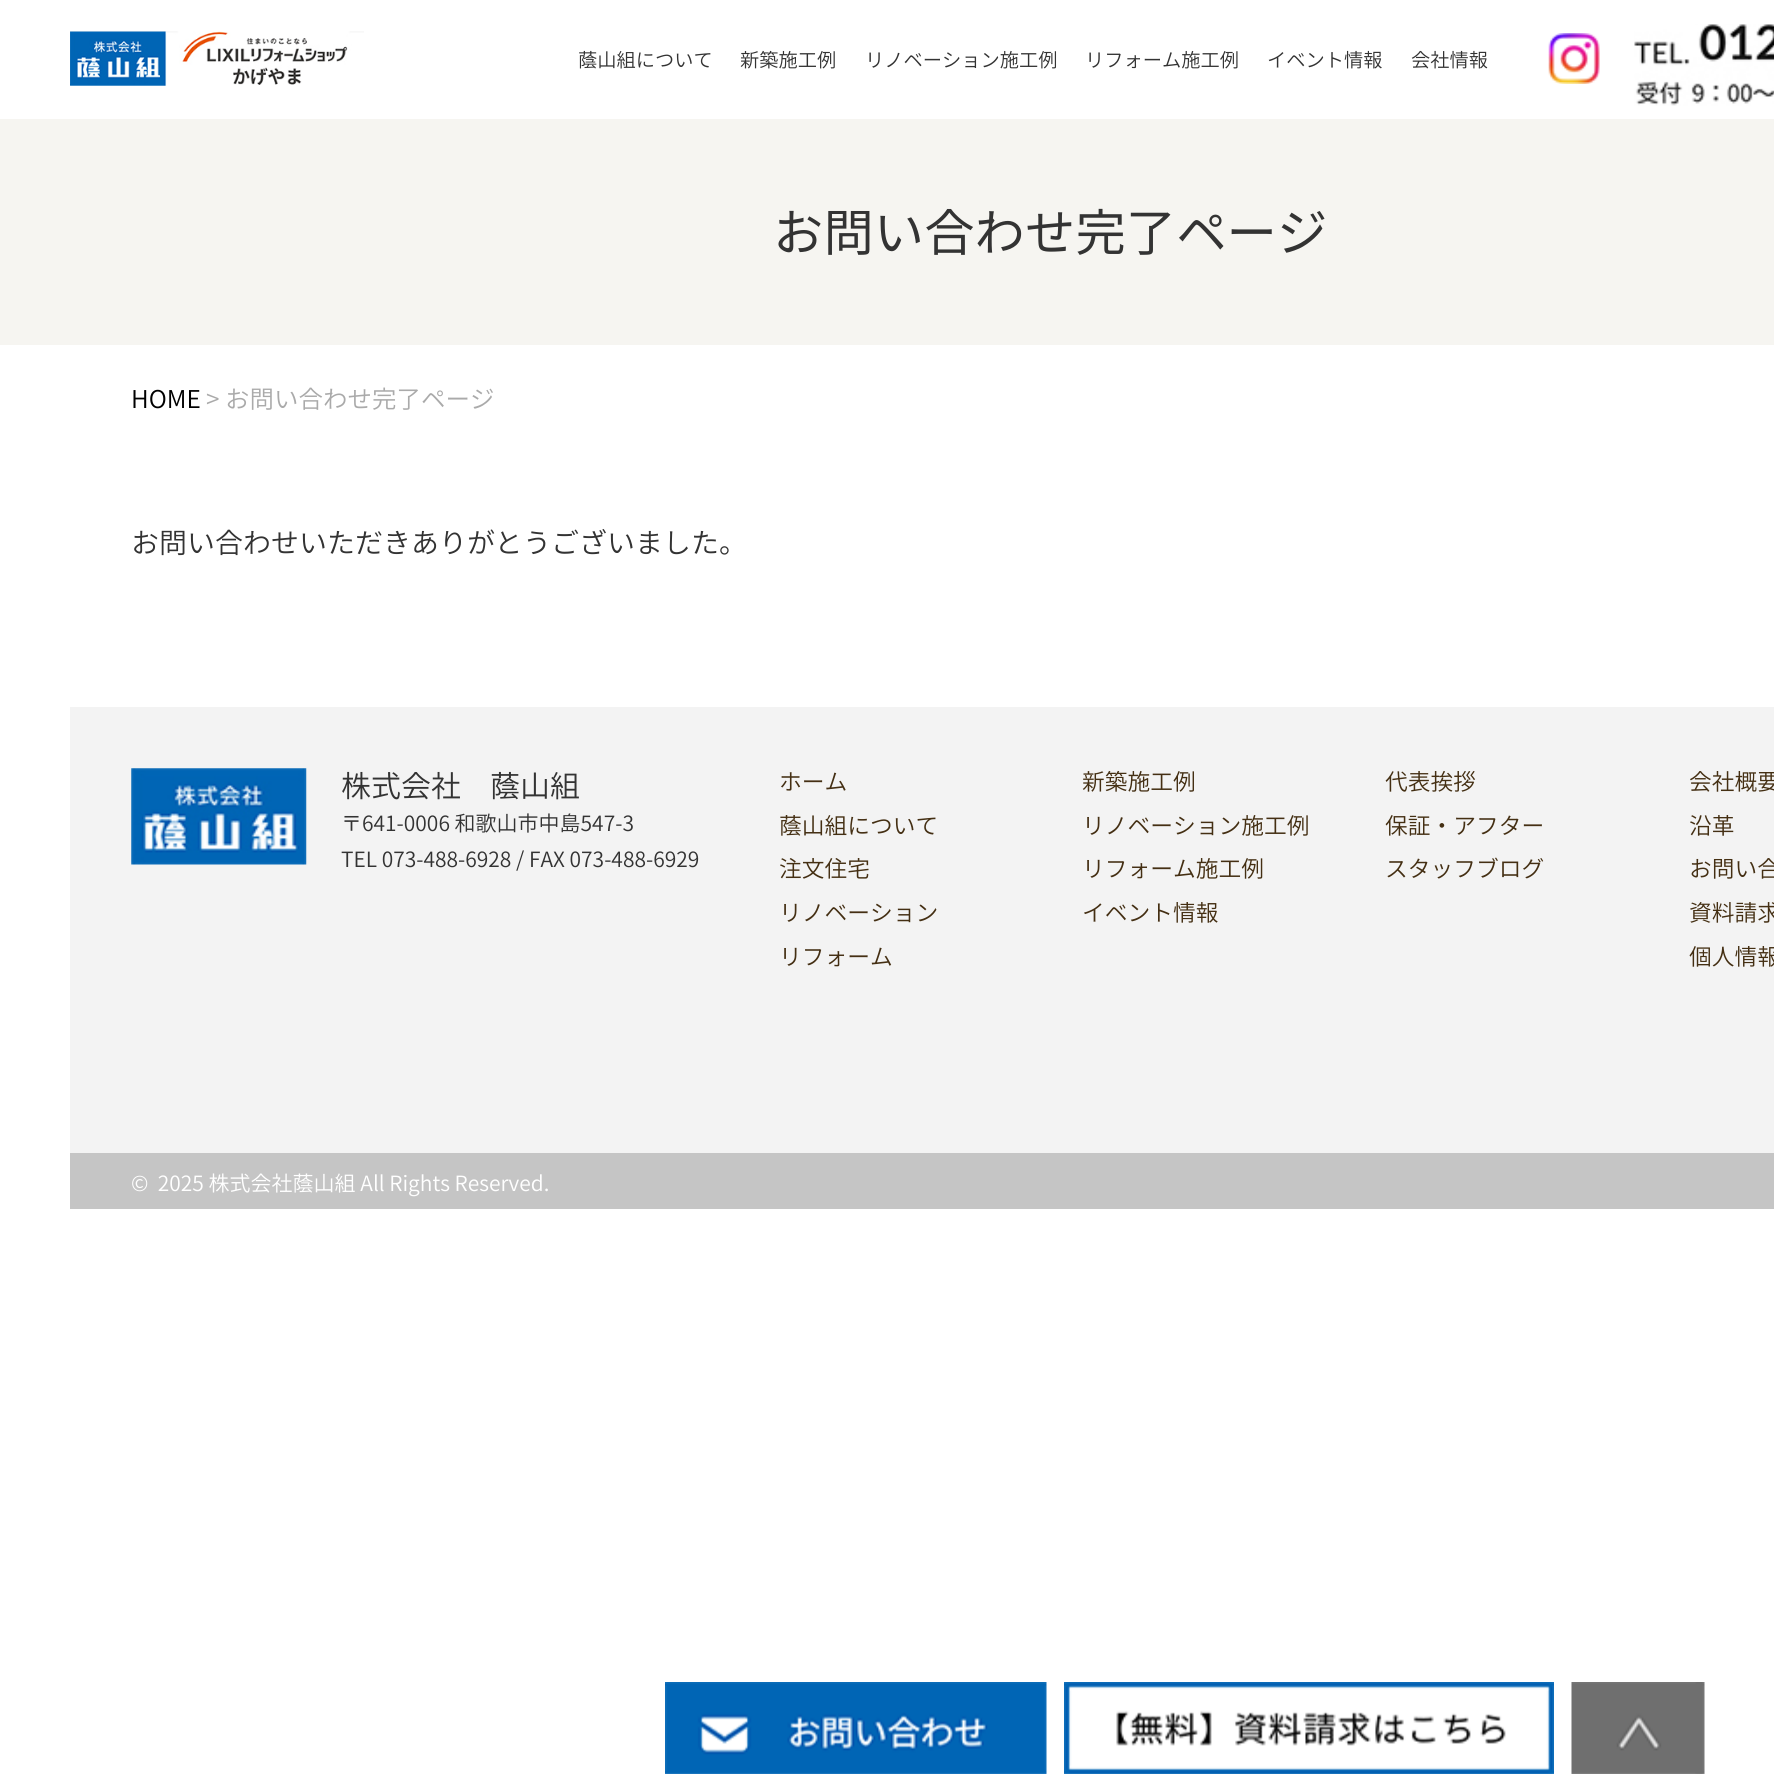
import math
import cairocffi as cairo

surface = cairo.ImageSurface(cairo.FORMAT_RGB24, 1774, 1774)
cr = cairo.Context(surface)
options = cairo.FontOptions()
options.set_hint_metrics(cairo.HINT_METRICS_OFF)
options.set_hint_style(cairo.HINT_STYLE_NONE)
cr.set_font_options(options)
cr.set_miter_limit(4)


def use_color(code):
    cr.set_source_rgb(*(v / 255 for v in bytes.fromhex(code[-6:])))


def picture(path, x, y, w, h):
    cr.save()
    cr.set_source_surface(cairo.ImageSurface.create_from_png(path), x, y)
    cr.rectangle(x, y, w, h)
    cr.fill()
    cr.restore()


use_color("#ffffff")
cr.paint()
picture("img1.png", 70, 31, 294, 55)
cr.select_font_face("Noto Sans CJK JP Light")
cr.set_font_size(19.25)
use_color("#333333")
cr.move_to(578, 67)
cr.show_text("蔭山組について")
cr.move_to(740, 67)
cr.show_text("新築施工例")
cr.move_to(865, 67)
cr.show_text("リノベーション施工例")
cr.move_to(1085, 67)
cr.show_text("リフォーム施工例")
cr.move_to(1267, 67)
cr.show_text("イベント情報")
cr.move_to(1411, 67)
cr.show_text("会社情報")
picture("img2.png", 1548, 33, 52, 51)
picture("img3.png", 1634, 24, 140, 82)
use_color("#f6f5f1")
cr.rectangle(0, 119, 1774, 226)
cr.fill()
cr.select_font_face("Noto Sans CJK JP")
cr.set_font_size(50.4)
use_color("#333333")
cr.move_to(773, 251)
cr.show_text("お問い合わせ完了ページ")
cr.select_font_face("Noto Sans CJK JP Light")
cr.set_font_size(24.5)
use_color("#000000")
cr.move_to(131, 408)
cr.show_text("HOME")
use_color("#aaaaaa")
cr.move_to(206, 408)
cr.show_text("> お問い合わせ完了ページ")
cr.set_font_size(28)
use_color("#333333")
cr.move_to(131, 553)
cr.show_text("お問い合わせいただきありがとうございました。")
use_color("#f3f3f3")
cr.rectangle(70, 707, 1704, 446)
cr.fill()
picture("img4.png", 131, 768, 176, 97)
cr.set_font_size(30)
use_color("#333333")
cr.move_to(341, 797)
cr.show_text("株式会社")
cr.move_to(490, 797)
cr.show_text("蔭山組")
cr.set_font_size(21)
cr.move_to(341, 831)
cr.show_text("〒641-0006 和歌山市中島547-3")
cr.move_to(341, 867)
cr.show_text("TEL 073-488-6928 / FAX 073-488-6929")
cr.set_font_size(22.75)
use_color("#442f13")
cr.move_to(779, 790)
cr.show_text("ホーム")
cr.move_to(779, 834)
cr.show_text("蔭山組について")
cr.move_to(779, 877)
cr.show_text("注文住宅")
cr.move_to(779, 921)
cr.show_text("リノベーション")
cr.move_to(779, 965)
cr.show_text("リフォーム")
cr.move_to(1082, 790)
cr.show_text("新築施工例")
cr.move_to(1082, 834)
cr.show_text("リノベーション施工例")
cr.move_to(1082, 877)
cr.show_text("リフォーム施工例")
cr.move_to(1082, 921)
cr.show_text("イベント情報")
cr.move_to(1385, 790)
cr.show_text("代表挨拶")
cr.move_to(1385, 834)
cr.show_text("保証・アフター")
cr.move_to(1385, 877)
cr.show_text("スタッフブログ")
cr.move_to(1689, 790)
cr.show_text("会社概要")
cr.move_to(1689, 834)
cr.show_text("沿革")
cr.move_to(1689, 877)
cr.show_text("お問い合")
cr.move_to(1689, 921)
cr.show_text("資料請求")
cr.move_to(1689, 965)
cr.show_text("個人情報")
use_color("#c5c5c5")
cr.rectangle(70, 1153, 1704, 56)
cr.fill()
cr.set_font_size(21)
use_color("#ffffff")
cr.move_to(131, 1191)
cr.show_text("©  2025 株式会社蔭山組 All Rights Reserved.")
picture("img5.png", 665, 1682, 382, 92)
picture("img6.png", 1064, 1682, 490, 92)
picture("img7.png", 1571, 1682, 134, 92)
surface.write_to_png("result.png")
